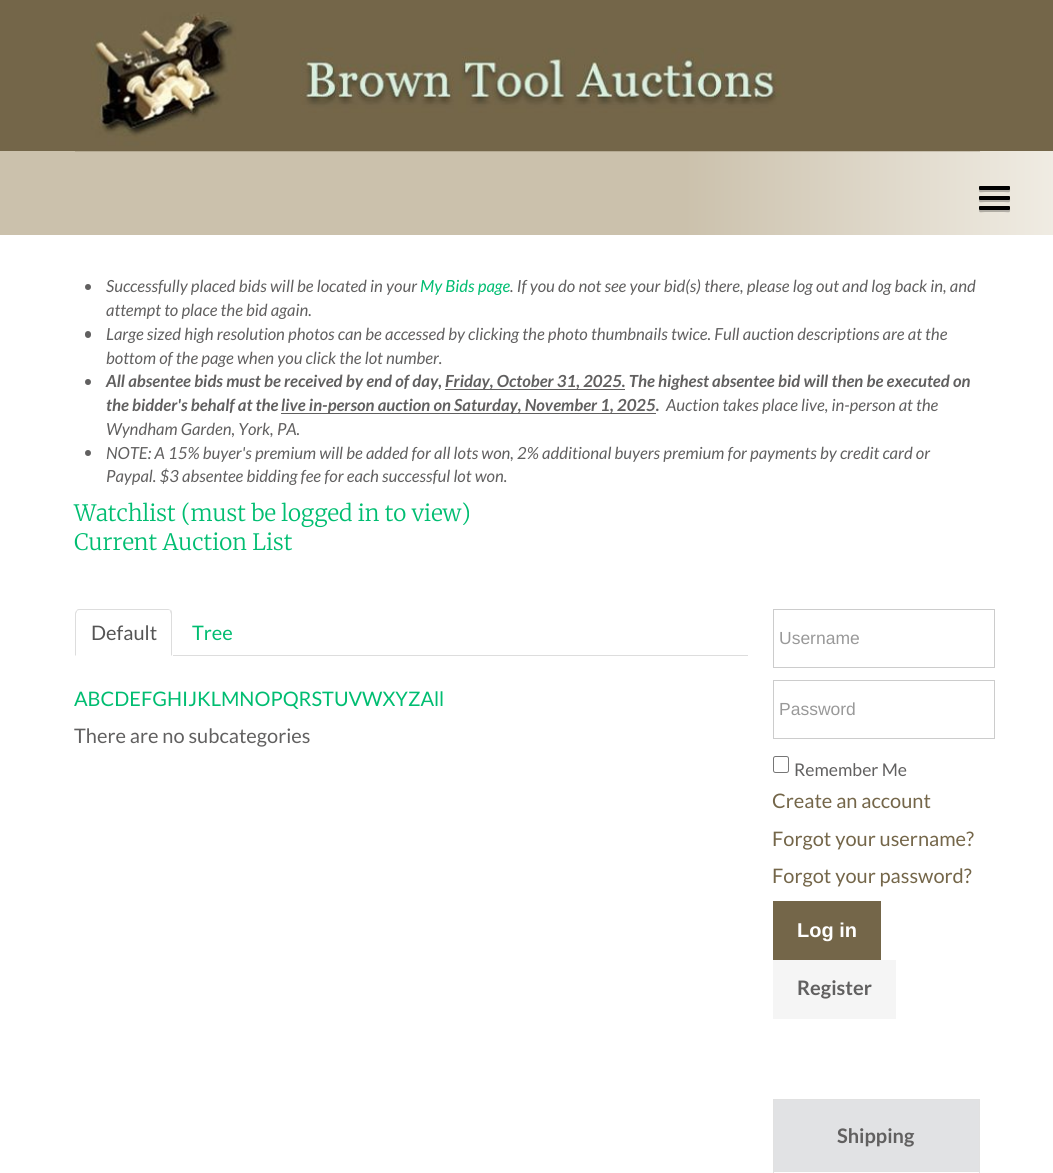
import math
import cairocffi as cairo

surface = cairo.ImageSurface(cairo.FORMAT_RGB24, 1053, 1173)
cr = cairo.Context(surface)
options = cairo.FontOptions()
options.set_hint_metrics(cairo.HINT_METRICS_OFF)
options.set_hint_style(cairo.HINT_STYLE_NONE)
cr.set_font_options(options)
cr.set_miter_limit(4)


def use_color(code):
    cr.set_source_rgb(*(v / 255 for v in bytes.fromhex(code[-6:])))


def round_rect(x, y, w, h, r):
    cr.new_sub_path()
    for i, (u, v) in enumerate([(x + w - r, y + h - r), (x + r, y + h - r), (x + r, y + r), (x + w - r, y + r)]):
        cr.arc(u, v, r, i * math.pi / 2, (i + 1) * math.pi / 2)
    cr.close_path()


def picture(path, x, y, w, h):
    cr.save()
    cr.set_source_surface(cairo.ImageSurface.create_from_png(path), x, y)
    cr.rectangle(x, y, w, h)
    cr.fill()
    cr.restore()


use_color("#ffffff")
cr.paint()
use_color("#746649")
cr.rectangle(0, 0, 1053, 151)
cr.fill()
gradient = cairo.LinearGradient(0, 193, 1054, 193)
gradient.add_color_stop_rgba(0, 0.796, 0.757, 0.675, 1)
gradient.add_color_stop_rgba(0.65, 0.796, 0.757, 0.675, 1)
gradient.add_color_stop_rgba(1, 0.941, 0.925, 0.89, 1)
cr.set_source(gradient)
cr.rectangle(0, 151, 1053, 84)
cr.fill()
picture("img1.png", 75, 12, 905, 140)
cr.set_source_rgba(0, 0, 0, 0.25)
cr.new_path()
cr.move_to(979, 189.5)
cr.curve_to(979, 193.5, 980.5, 192, 985, 192)
cr.line_to(1004, 192)
cr.curve_to(1008.5, 192, 1010.5, 193.5, 1010, 189)
cr.line_to(1009, 190)
cr.line_to(980, 190)
cr.close_path()
cr.fill()
use_color("#000000")
round_rect(979, 186, 31, 4, 1)
cr.fill()
cr.set_source_rgba(0, 0, 0, 0.25)
cr.new_path()
cr.move_to(979, 199.5)
cr.curve_to(979, 203.5, 980.5, 202, 985, 202)
cr.line_to(1004, 202)
cr.curve_to(1008.5, 202, 1010.5, 203.5, 1010, 199)
cr.line_to(1009, 200)
cr.line_to(980, 200)
cr.close_path()
cr.fill()
use_color("#000000")
round_rect(979, 196, 31, 4, 1)
cr.fill()
cr.set_source_rgba(0, 0, 0, 0.25)
cr.new_path()
cr.move_to(979, 209.5)
cr.curve_to(979, 213.5, 980.5, 212, 985, 212)
cr.line_to(1004, 212)
cr.curve_to(1008.5, 212, 1010.5, 213.5, 1010, 209)
cr.line_to(1009, 210)
cr.line_to(980, 210)
cr.close_path()
cr.fill()
use_color("#000000")
round_rect(979, 206, 31, 4, 1)
cr.fill()
use_color("#616060")
cr.arc(88, 287, 3, 0, 2 * math.pi)
cr.fill()
cr.select_font_face("Lato", cairo.FONT_SLANT_ITALIC)
cr.set_font_size(16.67)
cr.move_to(106, 292)
cr.show_text("Successfully placed bids will be located in your")
use_color("#00bd71")
cr.move_to(420, 292)
cr.show_text("My Bids page")
use_color("#616060")
cr.move_to(510, 292)
cr.show_text(". If you do not see your bid(s) there, please log out and log back in, and")
cr.move_to(106, 316)
cr.show_text("attempt to place the bid again.")
round_rect(85, 331, 6, 7, 3)
cr.fill()
cr.move_to(106, 340)
cr.show_text("Large sized high resolution photos can be accessed by clicking the photo thumbnails twice. Full auction descriptions are at the")
cr.move_to(106, 364)
cr.show_text("bottom of the page when you click the lot number.")
cr.new_path()
cr.arc(88, 382, 3, 0, 2 * math.pi)
cr.fill()
cr.select_font_face("Lato", cairo.FONT_SLANT_ITALIC, cairo.FONT_WEIGHT_BOLD)
cr.move_to(106, 387)
cr.show_text("All absentee bids must be received by end of day,")
cr.rectangle(445, 389, 180, 1)
cr.fill()
cr.move_to(445, 387)
cr.show_text("Friday, October 31, 2025. The highest absentee bid will then be executed on")
cr.move_to(106, 411)
cr.show_text("the bidder's behalf at the")
cr.rectangle(281, 413, 375, 1)
cr.fill()
cr.move_to(281, 411)
cr.show_text("live in-person auction on Saturday, November 1, 2025.")
cr.select_font_face("Lato", cairo.FONT_SLANT_ITALIC)
cr.move_to(666, 411)
cr.show_text("Auction takes place live, in-person at the")
cr.move_to(106, 435)
cr.show_text("Wyndham Garden, York, PA.")
cr.new_path()
cr.arc(88, 453, 3, 0, 2 * math.pi)
cr.fill()
cr.move_to(106, 459)
cr.show_text("NOTE: A 15% buyer's premium will be added for all lots won, 2% additional buyers premium for payments by credit card or")
cr.move_to(106, 482)
cr.show_text("Paypal. $3 absentee bidding fee for each successful lot won.")
cr.select_font_face("Merriweather Light")
cr.set_font_size(22.5)
use_color("#00bd71")
cr.move_to(74, 521)
cr.show_text("Watchlist (must be logged in to view)")
cr.move_to(74, 550)
cr.show_text("Current Auction List")
use_color("#dddddd")
cr.rectangle(173, 655, 575, 1)
cr.fill()
cr.new_path()
cr.move_to(80, 609)
cr.curve_to(79, 609, 77, 609, 77, 610)
cr.line_to(77, 611)
cr.curve_to(78, 610, 79, 610, 80, 610)
cr.line_to(168, 610)
cr.curve_to(169, 610, 170, 610, 170, 611)
cr.line_to(171, 610)
cr.curve_to(170, 610, 169, 609, 168, 609)
cr.close_path()
cr.fill()
cr.new_path()
cr.move_to(172, 656)
cr.line_to(172, 614)
cr.curve_to(172, 613, 172, 611, 171, 610)
cr.line_to(170, 611)
cr.line_to(171, 614)
cr.line_to(171, 655)
cr.close_path()
cr.fill()
cr.new_path()
cr.move_to(75, 614)
cr.line_to(75, 656)
cr.line_to(76, 655)
cr.line_to(76, 614)
cr.curve_to(76, 613, 77, 612, 77, 611)
cr.line_to(77, 610)
cr.curve_to(76, 611, 75, 612, 75, 614)
cr.close_path()
cr.fill()
cr.select_font_face("Lato")
cr.set_font_size(20)
use_color("#555555")
cr.move_to(91, 640)
cr.show_text("Default")
use_color("#00bd71")
cr.move_to(192, 640)
cr.show_text("Tree")
cr.move_to(74, 706)
cr.show_text("ABCDEFGHIJKLMNOPQRSTUVWXYZAll")
use_color("#616060")
cr.move_to(74, 743)
cr.show_text("There are no subcategories")
cr.rectangle(773.5, 609.5, 221, 58)
use_color("#cccccc")
cr.set_line_width(1)
cr.stroke()
cr.select_font_face("Liberation Sans")
cr.set_font_size(17.5)
use_color("#999999")
cr.move_to(779, 644)
cr.show_text("Username")
cr.rectangle(773.5, 680.5, 221, 58)
use_color("#cccccc")
cr.stroke()
use_color("#999999")
cr.move_to(779, 715)
cr.show_text("Password")
round_rect(773.5, 756.5, 15, 16, 2)
use_color("#767676")
cr.stroke()
cr.select_font_face("Lato")
use_color("#616060")
cr.move_to(794, 776)
cr.show_text("Remember Me")
cr.set_font_size(20)
use_color("#746649")
cr.move_to(772, 808)
cr.show_text("Create an account")
cr.move_to(772, 846)
cr.show_text("Forgot your username?")
cr.move_to(772, 883)
cr.show_text("Forgot your password?")
cr.rectangle(773, 901, 108, 59)
cr.fill()
cr.select_font_face("Liberation Sans", cairo.FONT_SLANT_NORMAL, cairo.FONT_WEIGHT_BOLD)
use_color("#ffffff")
cr.move_to(797, 937)
cr.show_text("Log in")
use_color("#f5f5f5")
cr.rectangle(773, 960, 123, 59)
cr.fill()
cr.select_font_face("Lato", cairo.FONT_SLANT_NORMAL, cairo.FONT_WEIGHT_BOLD)
use_color("#616060")
cr.move_to(797, 995)
cr.show_text("Register")
use_color("#e1e2e4")
cr.rectangle(774, 1100, 205, 71)
cr.fill()
use_color("#e1e1e1")
cr.rectangle(773, 1099, 207, 1)
cr.fill()
cr.rectangle(979, 1099, 1, 74)
cr.fill()
cr.rectangle(773, 1171, 207, 1)
cr.fill()
cr.rectangle(773, 1099, 1, 74)
cr.fill()
use_color("#616060")
cr.move_to(837, 1143)
cr.show_text("Shipping")
surface.write_to_png("result.png")
